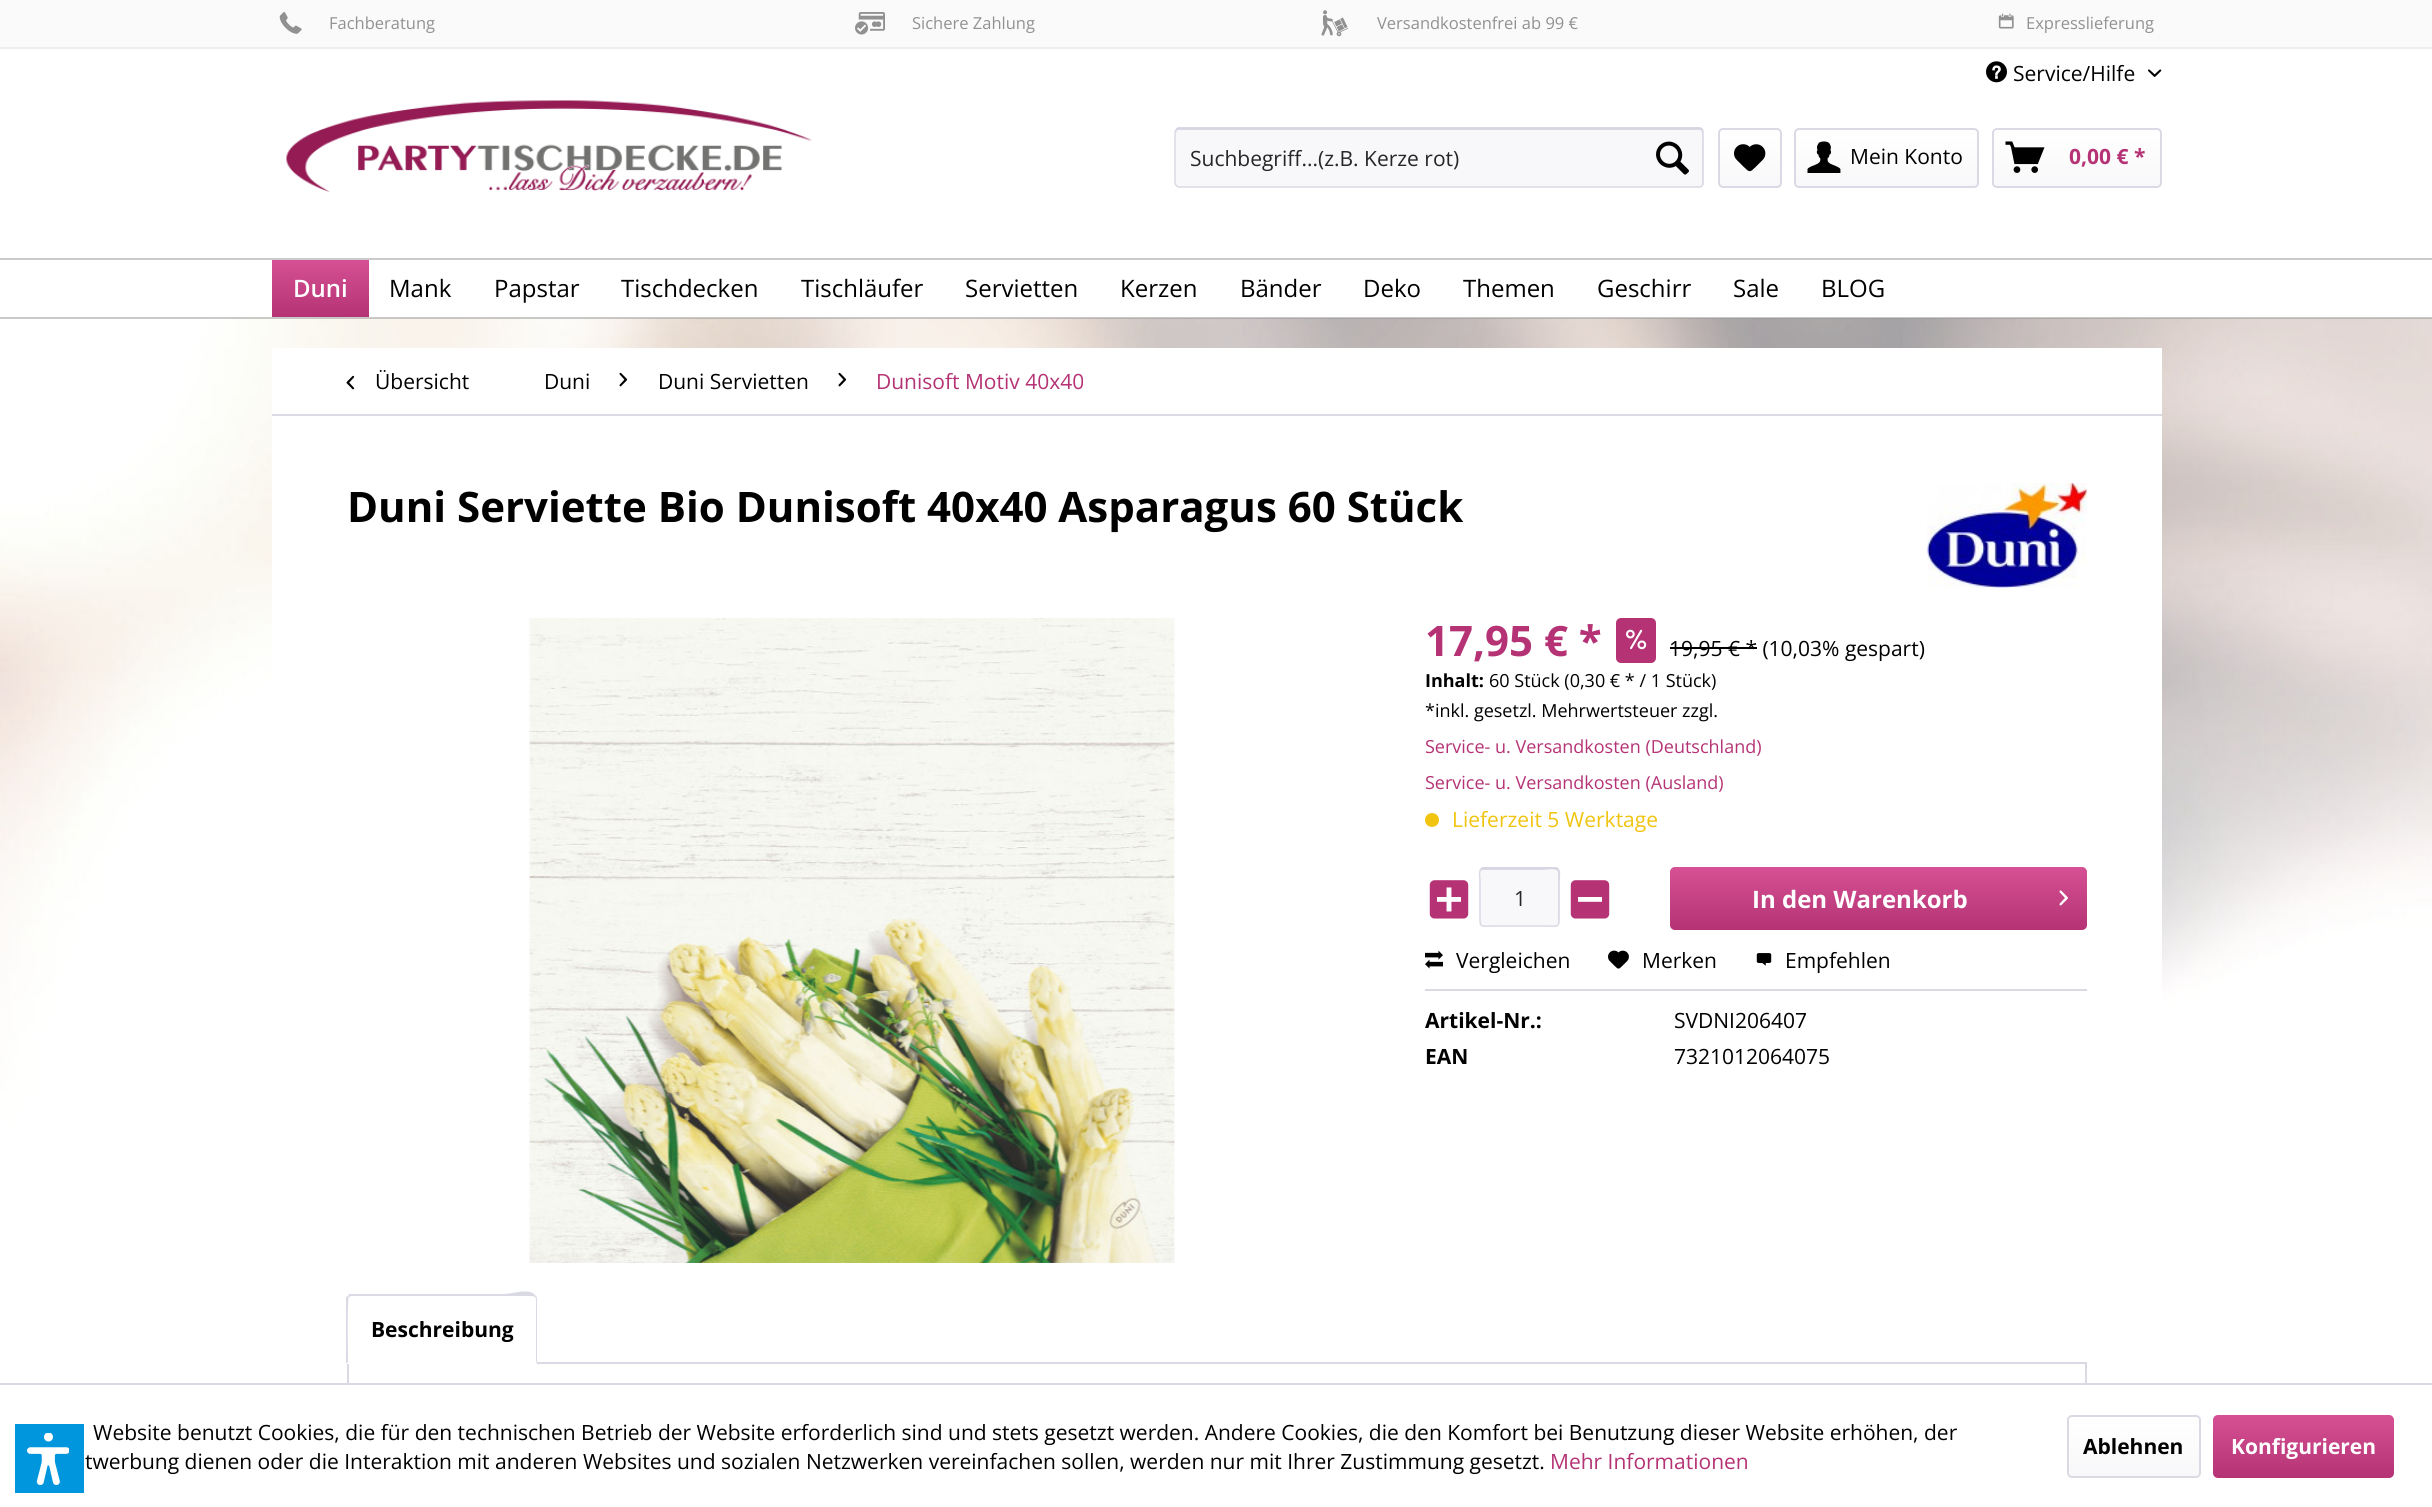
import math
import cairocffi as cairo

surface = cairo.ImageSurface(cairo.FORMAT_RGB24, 2432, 1507)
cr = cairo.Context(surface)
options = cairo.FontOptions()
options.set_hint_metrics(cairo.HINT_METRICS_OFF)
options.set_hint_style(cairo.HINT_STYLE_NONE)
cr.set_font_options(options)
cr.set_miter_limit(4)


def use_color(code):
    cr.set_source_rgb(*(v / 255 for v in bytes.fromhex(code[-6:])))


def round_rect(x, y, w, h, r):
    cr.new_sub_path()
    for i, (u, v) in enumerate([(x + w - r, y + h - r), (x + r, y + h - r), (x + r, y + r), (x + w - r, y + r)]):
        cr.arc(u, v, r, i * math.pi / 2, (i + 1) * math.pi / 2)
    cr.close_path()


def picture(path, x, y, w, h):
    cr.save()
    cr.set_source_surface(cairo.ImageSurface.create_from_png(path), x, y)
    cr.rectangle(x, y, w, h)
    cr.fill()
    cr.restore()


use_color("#ffffff")
cr.paint()
picture("img1.png", 0, 318, 2432, 806)
use_color("#fafafa")
cr.rectangle(0, 0, 2432, 47)
cr.fill()
use_color("#eeeeee")
cr.rectangle(0, 47, 2432, 2)
cr.fill()
picture("img2.png", 279, 12, 23, 22)
cr.select_font_face("Open Sans")
cr.set_font_size(16.5)
use_color("#919191")
cr.move_to(329, 29)
cr.show_text("Fachberatung")
picture("img3.png", 855, 12, 30, 23)
cr.move_to(912, 29)
cr.show_text("Sichere Zahlung")
picture("img4.png", 1321, 10, 28, 27)
cr.move_to(1377, 29)
cr.show_text("Versandkostenfrei ab 99 €")
picture("img5.png", 1998, 13, 16, 16)
cr.move_to(2026, 29)
cr.show_text("Expresslieferung")
picture("img6.png", 1986, 61, 21, 22)
cr.set_font_size(21)
use_color("#000000")
cr.move_to(2013, 81)
cr.show_text("Service/Hilfe")
picture("img7.png", 2148, 69, 14, 8)
picture("img8.png", 286, 100, 526, 92)
use_color("#f8f8fa")
round_rect(1175, 128, 529, 60, 5)
cr.fill()
use_color("#dadae5")
cr.new_path()
cr.move_to(1179, 130)
cr.line_to(1700, 130)
cr.curve_to(1704, 130, 1702, 148, 1702, 151)
cr.line_to(1702, 185)
cr.curve_to(1703, 185, 1703, 184, 1703, 183)
cr.line_to(1703, 132)
cr.curve_to(1703, 130, 1702, 129, 1700, 129)
cr.line_to(1179, 129)
cr.curve_to(1177, 129, 1176, 130, 1176, 132)
cr.line_to(1176, 134)
cr.curve_to(1176, 132, 1177, 130, 1179, 130)
cr.close_path()
cr.fill()
cr.new_path()
cr.move_to(1176.5, 129.5)
cr.curve_to(1177, 128.5, 1178, 128, 1179, 128)
cr.line_to(1699.5, 128)
cr.curve_to(1700.5, 128, 1701.5, 128.5, 1702, 129.5)
use_color("#cbcbdb")
cr.set_line_width(1.5)
cr.stroke()
cr.new_path()
cr.move_to(1702, 129.5)
cr.curve_to(1703, 130, 1703, 131, 1703, 132)
cr.line_to(1703, 183)
cr.curve_to(1703, 184, 1703, 185, 1702, 185.5)
cr.curve_to(1701.5, 186.5, 1700.5, 187, 1699.5, 187)
cr.line_to(1179, 187)
cr.curve_to(1178, 187, 1177, 186.5, 1176.5, 185.5)
cr.curve_to(1175.5, 185, 1175, 184, 1175, 183)
cr.line_to(1175, 132)
cr.curve_to(1175, 131, 1175.5, 130, 1176.5, 129.5)
use_color("#dadae5")
cr.stroke()
use_color("#262626")
cr.move_to(1190, 166)
cr.show_text("Suchbegriff...(z.B. Kerze rot)")
picture("img9.png", 1656, 141, 33, 34)
gradient = cairo.LinearGradient(1750, 129, 1750, 186)
gradient.add_color_stop_rgba(0, 1, 1, 1, 1)
gradient.add_color_stop_rgba(1, 0.973, 0.973, 0.98, 1)
cr.set_source(gradient)
round_rect(1719, 129, 62, 57, 3)
cr.fill()
round_rect(1719, 129, 62, 58, 4)
use_color("#dadae5")
cr.set_line_width(2)
cr.stroke()
picture("img10.png", 1734, 144, 32, 28)
gradient = cairo.LinearGradient(1886, 129, 1886, 186)
gradient.add_color_stop_rgba(0, 1, 1, 1, 1)
gradient.add_color_stop_rgba(1, 0.973, 0.973, 0.98, 1)
cr.set_source(gradient)
round_rect(1796, 129, 181, 57, 3)
cr.fill()
round_rect(1795, 129, 183, 58, 4)
use_color("#dadae5")
cr.stroke()
picture("img11.png", 1807, 141, 34, 32)
use_color("#000000")
cr.move_to(1850, 164)
cr.show_text("Mein Konto")
gradient = cairo.LinearGradient(2077, 129, 2077, 186)
gradient.add_color_stop_rgba(0, 1, 1, 1, 1)
gradient.add_color_stop_rgba(1, 0.973, 0.973, 0.98, 1)
cr.set_source(gradient)
round_rect(1994, 129, 166, 57, 3)
cr.fill()
round_rect(1993, 129, 168, 58, 4)
use_color("#dadae5")
cr.stroke()
picture("img12.png", 2005, 141, 40, 32)
cr.select_font_face("Open Sans", cairo.FONT_SLANT_NORMAL, cairo.FONT_WEIGHT_BOLD)
use_color("#b53375")
cr.move_to(2069, 164)
cr.show_text("0,00 € *")
use_color("#cacaca")
cr.rectangle(0, 258, 2432, 2)
cr.fill()
cr.set_source_rgba(0.58, 0.58, 0.58, 0.5)
cr.rectangle(0, 317, 2432, 2)
cr.fill()
gradient = cairo.LinearGradient(320, 260, 320, 317)
gradient.add_color_stop_rgba(0, 0.835, 0.314, 0.58, 1)
gradient.add_color_stop_rgba(1, 0.71, 0.2, 0.459, 1)
cr.set_source(gradient)
cr.rectangle(272, 260, 97, 57)
cr.fill()
cr.select_font_face("Open Sans SemiBold")
cr.set_font_size(24)
use_color("#ffffff")
cr.move_to(293, 297)
cr.show_text("Duni")
cr.select_font_face("Open Sans")
use_color("#000000")
cr.move_to(389, 297)
cr.show_text("Mank")
cr.move_to(494, 297)
cr.show_text("Papstar")
cr.move_to(621, 297)
cr.show_text("Tischdecken")
cr.move_to(801, 297)
cr.show_text("Tischläufer")
cr.move_to(965, 297)
cr.show_text("Servietten")
cr.move_to(1120, 297)
cr.show_text("Kerzen")
cr.move_to(1240, 297)
cr.show_text("Bänder")
cr.move_to(1363, 297)
cr.show_text("Deko")
cr.move_to(1463, 297)
cr.show_text("Themen")
cr.move_to(1597, 297)
cr.show_text("Geschirr")
cr.move_to(1733, 297)
cr.show_text("Sale")
cr.move_to(1821, 297)
cr.show_text("BLOG")
use_color("#ffffff")
cr.rectangle(272, 348, 1890, 66)
cr.fill()
use_color("#dadae5")
cr.rectangle(272, 414, 1890, 2)
cr.fill()
picture("img13.png", 346, 375, 9, 15)
cr.set_font_size(21)
use_color("#000000")
cr.move_to(375, 389)
cr.show_text("Übersicht")
cr.move_to(544, 389)
cr.show_text("Duni")
picture("img14.png", 619, 372, 9, 15)
cr.move_to(658, 389)
cr.show_text("Duni Servietten")
picture("img14.png", 838, 372, 9, 15)
use_color("#b53375")
cr.move_to(876, 389)
cr.show_text("Dunisoft Motiv 40x40")
use_color("#ffffff")
cr.rectangle(272, 416, 1890, 708)
cr.fill()
cr.select_font_face("Open Sans", cairo.FONT_SLANT_NORMAL, cairo.FONT_WEIGHT_BOLD)
cr.set_font_size(42)
use_color("#000000")
cr.move_to(347, 522)
cr.show_text("Duni Serviette Bio Dunisoft 40x40 Asparagus 60 Stück")
picture("img15.png", 1927, 483, 160, 105)
picture("img16.png", 529, 618, 646, 645)
use_color("#b53375")
cr.move_to(1425, 656)
cr.show_text("17,95 € *")
round_rect(1616, 618, 40, 45, 5)
cr.fill()
picture("img17.png", 1626, 629, 21, 21)
cr.select_font_face("Open Sans")
cr.set_font_size(21)
use_color("#000000")
cr.move_to(1669, 656)
cr.show_text("19,95 € * (10,03% gespart)")
cr.rectangle(1670, 647, 87, 2)
cr.fill()
cr.select_font_face("Open Sans", cairo.FONT_SLANT_NORMAL, cairo.FONT_WEIGHT_BOLD)
cr.set_font_size(18)
cr.move_to(1425, 687)
cr.show_text("Inhalt:")
cr.select_font_face("Open Sans")
cr.move_to(1489, 687)
cr.show_text("60 Stück (0,30 € * / 1 Stück)")
cr.move_to(1425, 717)
cr.show_text("*inkl. gesetzl. Mehrwertsteuer zzgl.")
use_color("#b53375")
cr.move_to(1425, 753)
cr.show_text("Service- u. Versandkosten (Deutschland)")
cr.move_to(1425, 789)
cr.show_text("Service- u. Versandkosten (Ausland)")
use_color("#f1c40f")
cr.new_path()
cr.arc(1432, 820, 7, 0, 2 * math.pi)
cr.fill()
cr.set_font_size(21)
cr.move_to(1452, 827)
cr.show_text("Lieferzeit 5 Werktage")
picture("img18.png", 1429, 880, 40, 39)
use_color("#f8f8fa")
round_rect(1479, 867, 81, 60, 5)
cr.fill()
use_color("#dadae5")
cr.new_path()
cr.move_to(1484, 870)
cr.line_to(1544, 870)
cr.curve_to(1546, 870, 1558, 867, 1558, 873)
cr.line_to(1558, 925)
cr.curve_to(1559, 925, 1559, 924, 1559, 923)
cr.line_to(1559, 872)
cr.curve_to(1559, 870, 1558, 869, 1556, 869)
cr.line_to(1484, 869)
cr.curve_to(1483, 869, 1482, 870, 1481, 871)
cr.close_path()
cr.fill()
cr.new_path()
cr.move_to(1481, 869)
cr.line_to(1483, 868)
cr.line_to(1556, 868)
cr.line_to(1558, 869)
use_color("#cbcbdb")
cr.set_line_width(1.5)
cr.stroke()
cr.new_path()
cr.move_to(1558, 869)
cr.curve_to(1560.5, 871.5, 1559, 879, 1559, 880)
cr.line_to(1559, 914)
cr.curve_to(1559, 929, 1559.5, 926, 1543.5, 926)
cr.line_to(1495.5, 926)
cr.curve_to(1479.5, 926, 1480, 929, 1480, 914)
cr.line_to(1480, 880)
cr.curve_to(1480, 879, 1478.5, 871.5, 1481, 869)
use_color("#dadae5")
cr.stroke()
use_color("#262626")
cr.move_to(1514, 906)
cr.show_text("1")
picture("img19.png", 1570, 880, 40, 39)
gradient = cairo.LinearGradient(1878, 867, 1878, 930)
gradient.add_color_stop_rgba(0, 0.835, 0.314, 0.58, 1)
gradient.add_color_stop_rgba(1, 0.71, 0.2, 0.459, 1)
cr.set_source(gradient)
round_rect(1670, 867, 417, 63, 5)
cr.fill()
cr.select_font_face("Open Sans", cairo.FONT_SLANT_NORMAL, cairo.FONT_WEIGHT_BOLD)
cr.set_font_size(24)
use_color("#ffffff")
cr.move_to(1752, 908)
cr.show_text("In den Warenkorb")
picture("img20.png", 2059, 890, 9, 16)
use_color("#dadae5")
cr.rectangle(1425, 989, 662, 2)
cr.fill()
picture("img21.png", 1425, 950, 18, 19)
cr.select_font_face("Open Sans")
cr.set_font_size(21)
use_color("#000000")
cr.move_to(1456, 968)
cr.show_text("Vergleichen")
picture("img22.png", 1608, 950, 21, 19)
cr.move_to(1642, 968)
cr.show_text("Merken")
picture("img23.png", 1756, 953, 16, 13)
cr.move_to(1785, 968)
cr.show_text("Empfehlen")
cr.select_font_face("Open Sans", cairo.FONT_SLANT_NORMAL, cairo.FONT_WEIGHT_BOLD)
cr.move_to(1425, 1028)
cr.show_text("Artikel-Nr.:")
cr.select_font_face("Open Sans")
cr.move_to(1674, 1028)
cr.show_text("SVDNI206407")
cr.select_font_face("Open Sans", cairo.FONT_SLANT_NORMAL, cairo.FONT_WEIGHT_BOLD)
cr.move_to(1425, 1064)
cr.show_text("EAN")
cr.select_font_face("Open Sans")
cr.move_to(1674, 1064)
cr.show_text("7321012064075")
cr.rectangle(348, 1363, 1738, 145)
use_color("#dadae5")
cr.set_line_width(2)
cr.stroke()
use_color("#ffffff")
cr.new_path()
cr.move_to(352, 1295)
cr.line_to(532, 1295)
cr.curve_to(535, 1295, 537, 1297, 537, 1300)
cr.line_to(537, 1364)
cr.line_to(347, 1364)
cr.line_to(347, 1300)
cr.curve_to(347, 1297, 349, 1295, 352, 1295)
cr.close_path()
cr.fill()
use_color("#dadae5")
cr.new_path()
cr.move_to(351, 1296)
cr.line_to(349, 1297)
cr.line_to(348, 1296)
cr.line_to(349, 1294)
cr.line_to(503, 1294)
cr.curve_to(514, 1294, 529, 1287, 536, 1296)
cr.line_to(535, 1297)
cr.line_to(532, 1296)
cr.close_path()
cr.fill()
cr.new_path()
cr.move_to(537, 1364)
cr.line_to(537, 1299)
cr.curve_to(537, 1298, 537, 1297, 536, 1296)
cr.line_to(535, 1297)
cr.line_to(536, 1299)
cr.line_to(536, 1362)
cr.close_path()
cr.fill()
use_color("#ffffff")
cr.new_path()
cr.move_to(537, 1364)
cr.line_to(536, 1362)
cr.line_to(348, 1362)
cr.line_to(346, 1364)
cr.close_path()
cr.fill()
use_color("#dadae5")
cr.new_path()
cr.move_to(346, 1364)
cr.line_to(346, 1297)
cr.line_to(348, 1296)
cr.line_to(349, 1297)
cr.curve_to(347, 1298, 348, 1355, 348, 1362)
cr.close_path()
cr.fill()
cr.select_font_face("Open Sans", cairo.FONT_SLANT_NORMAL, cairo.FONT_WEIGHT_BOLD)
use_color("#000000")
cr.move_to(371, 1337)
cr.show_text("Beschreibung")
use_color("#0096de")
cr.rectangle(15, 1424, 69, 69)
cr.fill()
picture("img24.png", 27, 1433, 42, 52)
use_color("#ffffff")
cr.rectangle(347, 1385, 1740, 122)
cr.fill()
use_color("#dadae5")
cr.rectangle(0, 1383, 2432, 2)
cr.fill()
cr.select_font_face("Open Sans")
use_color("#000000")
cr.move_to(93, 1440)
cr.show_text("Website benutzt Cookies, die für den technischen Betrieb der Website erforderlich sind und stets gesetzt werden. Andere Cookies, die den Komfort bei Benutzung dieser Website erhöhen, der")
cr.move_to(85, 1469)
cr.show_text("twerbung dienen oder die Interaktion mit anderen Websites und sozialen Netzwerken vereinfachen sollen, werden nur mit Ihrer Zustimmung gesetzt.")
use_color("#b53375")
cr.move_to(1550, 1469)
cr.show_text("Mehr Informationen")
gradient = cairo.LinearGradient(2134, 1416, 2134, 1476)
gradient.add_color_stop_rgba(0, 1, 1, 1, 1)
gradient.add_color_stop_rgba(1, 0.973, 0.973, 0.98, 1)
cr.set_source(gradient)
round_rect(2069, 1416, 130, 60, 3)
cr.fill()
round_rect(2068, 1416, 132, 61, 4)
use_color("#dadae5")
cr.stroke()
cr.select_font_face("Open Sans", cairo.FONT_SLANT_NORMAL, cairo.FONT_WEIGHT_BOLD)
use_color("#000000")
cr.move_to(2083, 1454)
cr.show_text("Ablehnen")
gradient = cairo.LinearGradient(2303, 1415, 2303, 1478)
gradient.add_color_stop_rgba(0, 0.835, 0.314, 0.58, 1)
gradient.add_color_stop_rgba(1, 0.71, 0.2, 0.459, 1)
cr.set_source(gradient)
round_rect(2213, 1415, 181, 63, 5)
cr.fill()
use_color("#ffffff")
cr.move_to(2231, 1454)
cr.show_text("Konfigurieren")
surface.write_to_png("result.png")
